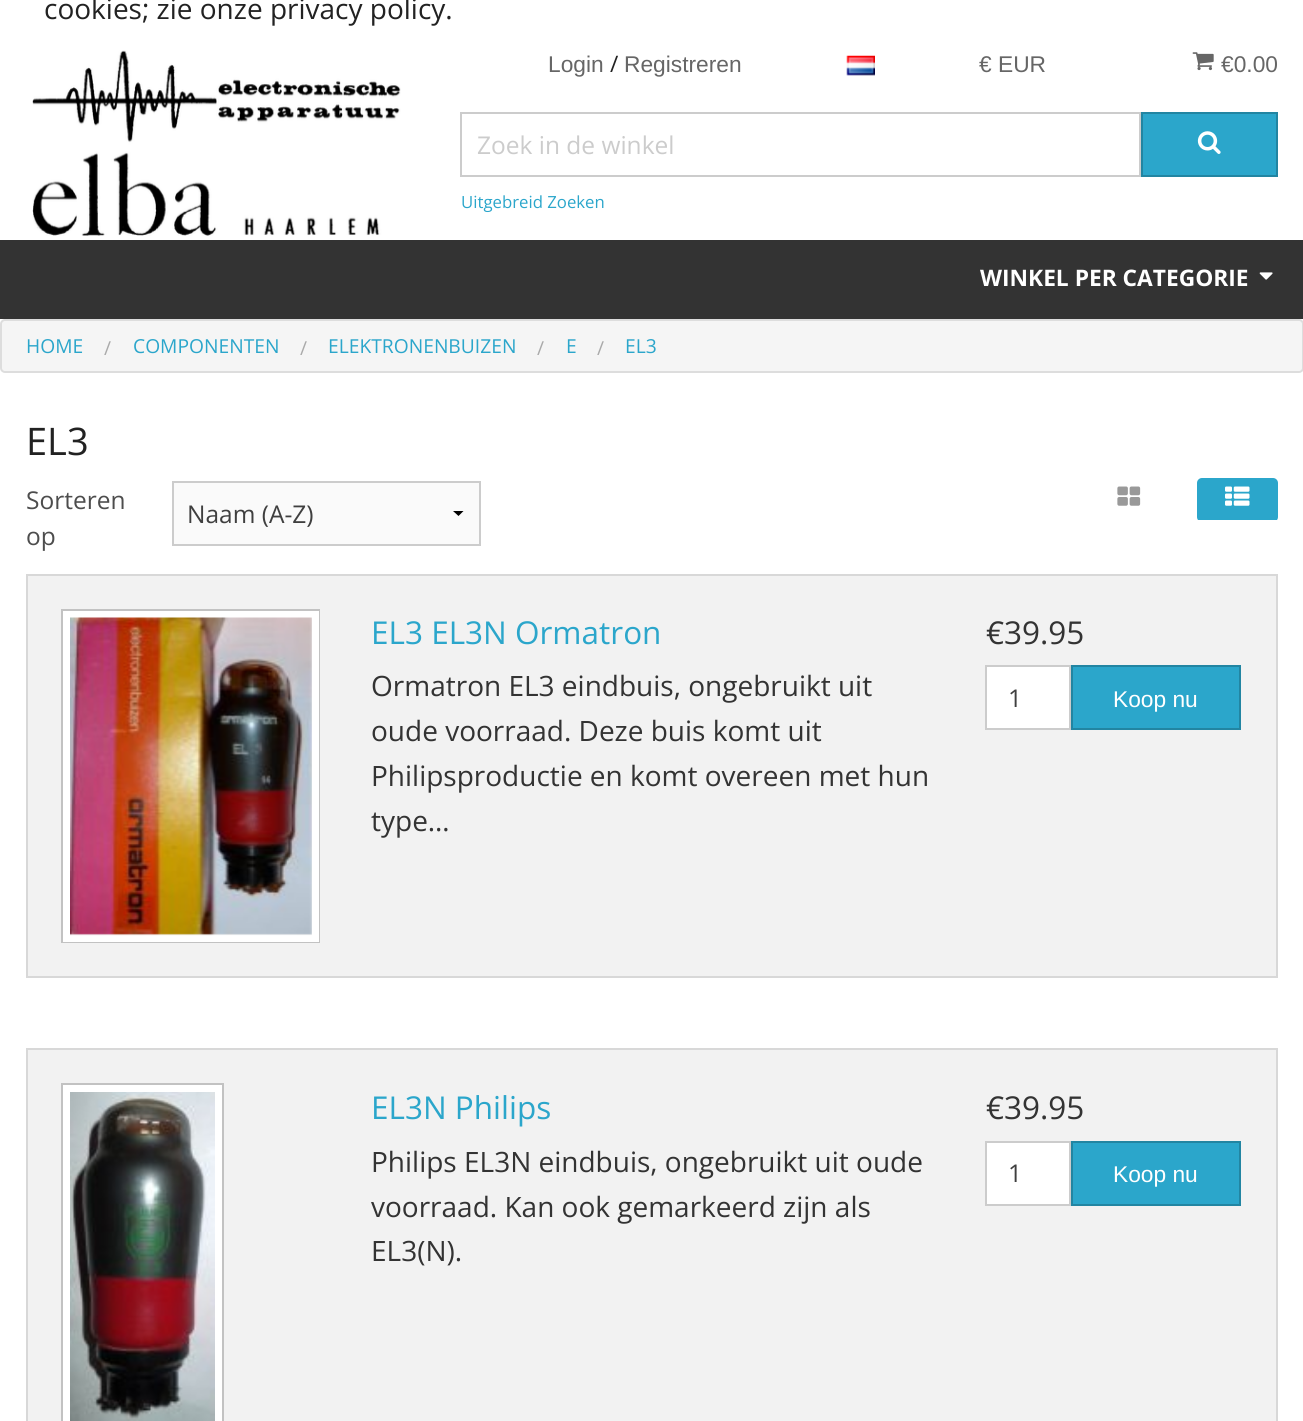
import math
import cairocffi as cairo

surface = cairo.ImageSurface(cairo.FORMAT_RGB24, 1303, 1421)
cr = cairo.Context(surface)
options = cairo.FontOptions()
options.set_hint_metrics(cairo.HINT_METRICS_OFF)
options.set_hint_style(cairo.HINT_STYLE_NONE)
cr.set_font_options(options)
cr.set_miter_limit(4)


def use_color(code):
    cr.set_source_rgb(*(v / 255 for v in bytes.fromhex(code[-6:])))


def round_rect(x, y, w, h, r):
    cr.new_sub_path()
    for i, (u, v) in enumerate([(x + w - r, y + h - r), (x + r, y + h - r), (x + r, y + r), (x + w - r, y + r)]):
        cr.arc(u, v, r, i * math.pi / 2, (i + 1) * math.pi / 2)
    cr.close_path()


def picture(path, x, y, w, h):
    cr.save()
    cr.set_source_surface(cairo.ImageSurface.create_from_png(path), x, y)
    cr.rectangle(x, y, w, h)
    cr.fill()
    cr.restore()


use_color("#ffffff")
cr.paint()
cr.select_font_face("Open Sans")
cr.set_font_size(28)
use_color("#222222")
cr.move_to(44, 19)
cr.show_text("cookies; zie onze privacy policy.")
picture("img1.png", 32, 50, 369, 186)
cr.select_font_face("Liberation Sans")
cr.set_font_size(22.75)
use_color("#666666")
cr.move_to(548, 72)
cr.show_text("Login")
cr.select_font_face("Open Sans")
use_color("#222222")
cr.move_to(610, 72)
cr.show_text("/")
cr.select_font_face("Liberation Sans")
use_color("#666666")
cr.move_to(624, 72)
cr.show_text("Registreren")
picture("img2.png", 846, 55, 29, 21)
cr.move_to(979, 72)
cr.show_text("€ EUR")
picture("img3.png", 1192, 52, 22, 19)
cr.move_to(1221, 72)
cr.show_text("€0.00")
cr.rectangle(461, 113, 679, 63)
use_color("#cccccc")
cr.stroke()
cr.select_font_face("Open Sans")
cr.set_font_size(24.5)
cr.move_to(477, 154)
cr.show_text("Zoek in de winkel")
cr.set_font_size(16.75)
use_color("#2ba6cb")
cr.move_to(461, 208)
cr.show_text("Uitgebreid Zoeken")
cr.rectangle(1142, 113, 135, 63)
cr.fill_preserve()
use_color("#2285a2")
cr.stroke()
picture("img4.png", 1197, 131, 24, 23)
use_color("#333333")
cr.rectangle(0, 240, 1303, 79)
cr.fill()
cr.select_font_face("Open Sans", cairo.FONT_SLANT_NORMAL, cairo.FONT_WEIGHT_BOLD)
cr.set_font_size(22.75)
use_color("#ffffff")
cr.move_to(980, 286)
cr.show_text("WINKEL PER CATEGORIE")
picture("img5.png", 1259, 272, 14, 8)
use_color("#f5f5f5")
round_rect(1, 320, 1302, 52, 4)
cr.fill_preserve()
use_color("#dddddd")
cr.stroke()
cr.select_font_face("Open Sans")
cr.set_font_size(19.25)
use_color("#2ba6cb")
cr.move_to(26, 353)
cr.show_text("HOME")
use_color("#aaaaaa")
cr.move_to(104, 355)
cr.show_text("/")
use_color("#2ba6cb")
cr.move_to(133, 353)
cr.show_text("COMPONENTEN")
use_color("#aaaaaa")
cr.move_to(300, 355)
cr.show_text("/")
use_color("#2ba6cb")
cr.move_to(328, 353)
cr.show_text("ELEKTRONENBUIZEN")
use_color("#aaaaaa")
cr.move_to(537, 355)
cr.show_text("/")
use_color("#2ba6cb")
cr.move_to(566, 353)
cr.show_text("E")
use_color("#aaaaaa")
cr.move_to(597, 355)
cr.show_text("/")
use_color("#2ba6cb")
cr.move_to(625, 353)
cr.show_text("EL3")
cr.set_font_size(38)
use_color("#222222")
cr.move_to(26, 455)
cr.show_text("EL3")
cr.set_font_size(24.5)
use_color("#4d4d4d")
cr.move_to(26, 509)
cr.show_text("Sorteren")
cr.move_to(26, 545)
cr.show_text("op")
use_color("#fafafa")
cr.rectangle(174, 483, 305, 61)
cr.fill()
use_color("#000000")
cr.new_path()
cr.move_to(463.5, 511)
cr.line_to(458.5, 516)
cr.line_to(453, 511)
cr.close_path()
cr.fill()
cr.rectangle(173, 482, 307, 63)
use_color("#cccccc")
cr.stroke()
use_color("#3f3f3f")
cr.move_to(187, 523)
cr.show_text("Naam (A-Z)")
picture("img6.png", 1117, 486, 24, 20)
cr.save()
cr.rectangle(1061, 474, 217, 46)
cr.clip()
use_color("#2ba6cb")
round_rect(1197, 478, 81, 44, 5)
cr.fill()
cr.restore()
picture("img7.png", 1225, 486, 25, 20)
use_color("#f2f2f2")
cr.rectangle(27, 575, 1250, 402)
cr.fill_preserve()
use_color("#d8d8d8")
cr.stroke()
cr.rectangle(62, 610, 257, 332)
use_color("#c2c2c2")
cr.stroke()
cr.rectangle(66.5, 614.5, 249, 324)
use_color("#ffffff")
cr.set_line_width(7)
cr.stroke()
picture("img8.png", 70, 617, 242, 319)
cr.set_font_size(31.5)
use_color("#2ba6cb")
cr.move_to(371, 644)
cr.show_text("EL3 EL3N Ormatron")
cr.set_font_size(28)
use_color("#333333")
cr.move_to(371, 696)
cr.show_text("Ormatron EL3 eindbuis, ongebruikt uit")
cr.move_to(371, 741)
cr.show_text("oude voorraad. Deze buis komt uit")
cr.move_to(371, 786)
cr.show_text("Philipsproductie en komt overeen met hun")
cr.move_to(371, 831)
cr.show_text("type…")
cr.set_font_size(31.5)
cr.move_to(986, 644)
cr.show_text("€39.95")
use_color("#ffffff")
cr.rectangle(986, 666, 84, 63)
cr.fill_preserve()
use_color("#cccccc")
cr.set_line_width(2)
cr.stroke()
cr.set_font_size(24.5)
use_color("#3f3f3f")
cr.move_to(1008, 707)
cr.show_text("1")
use_color("#2ba6cb")
cr.rectangle(1072, 666, 168, 63)
cr.fill_preserve()
use_color("#2285a2")
cr.stroke()
cr.select_font_face("Liberation Sans")
cr.set_font_size(22.75)
use_color("#ffffff")
cr.move_to(1113, 707)
cr.show_text("Koop nu")
use_color("#f2f2f2")
cr.rectangle(27, 1049, 1250, 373)
cr.fill_preserve()
use_color("#d8d8d8")
cr.stroke()
cr.rectangle(62, 1084, 161, 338)
use_color("#c2c2c2")
cr.stroke()
cr.rectangle(66.5, 1088.5, 152, 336)
use_color("#ffffff")
cr.set_line_width(7)
cr.stroke()
picture("img9.png", 70, 1092, 145, 329)
cr.select_font_face("Open Sans")
cr.set_font_size(31.5)
use_color("#2ba6cb")
cr.move_to(371, 1119)
cr.show_text("EL3N Philips")
cr.set_font_size(28)
use_color("#333333")
cr.move_to(371, 1172)
cr.show_text("Philips EL3N eindbuis, ongebruikt uit oude")
cr.move_to(371, 1217)
cr.show_text("voorraad. Kan ook gemarkeerd zijn als")
cr.move_to(371, 1261)
cr.show_text("EL3(N).")
cr.set_font_size(31.5)
cr.move_to(986, 1119)
cr.show_text("€39.95")
use_color("#ffffff")
cr.rectangle(986, 1142, 84, 63)
cr.fill_preserve()
use_color("#cccccc")
cr.set_line_width(2)
cr.stroke()
cr.set_font_size(24.5)
use_color("#3f3f3f")
cr.move_to(1008, 1182)
cr.show_text("1")
use_color("#2ba6cb")
cr.rectangle(1072, 1142, 168, 63)
cr.fill_preserve()
use_color("#2285a2")
cr.stroke()
cr.select_font_face("Liberation Sans")
cr.set_font_size(22.75)
use_color("#ffffff")
cr.move_to(1113, 1182)
cr.show_text("Koop nu")
surface.write_to_png("result.png")
